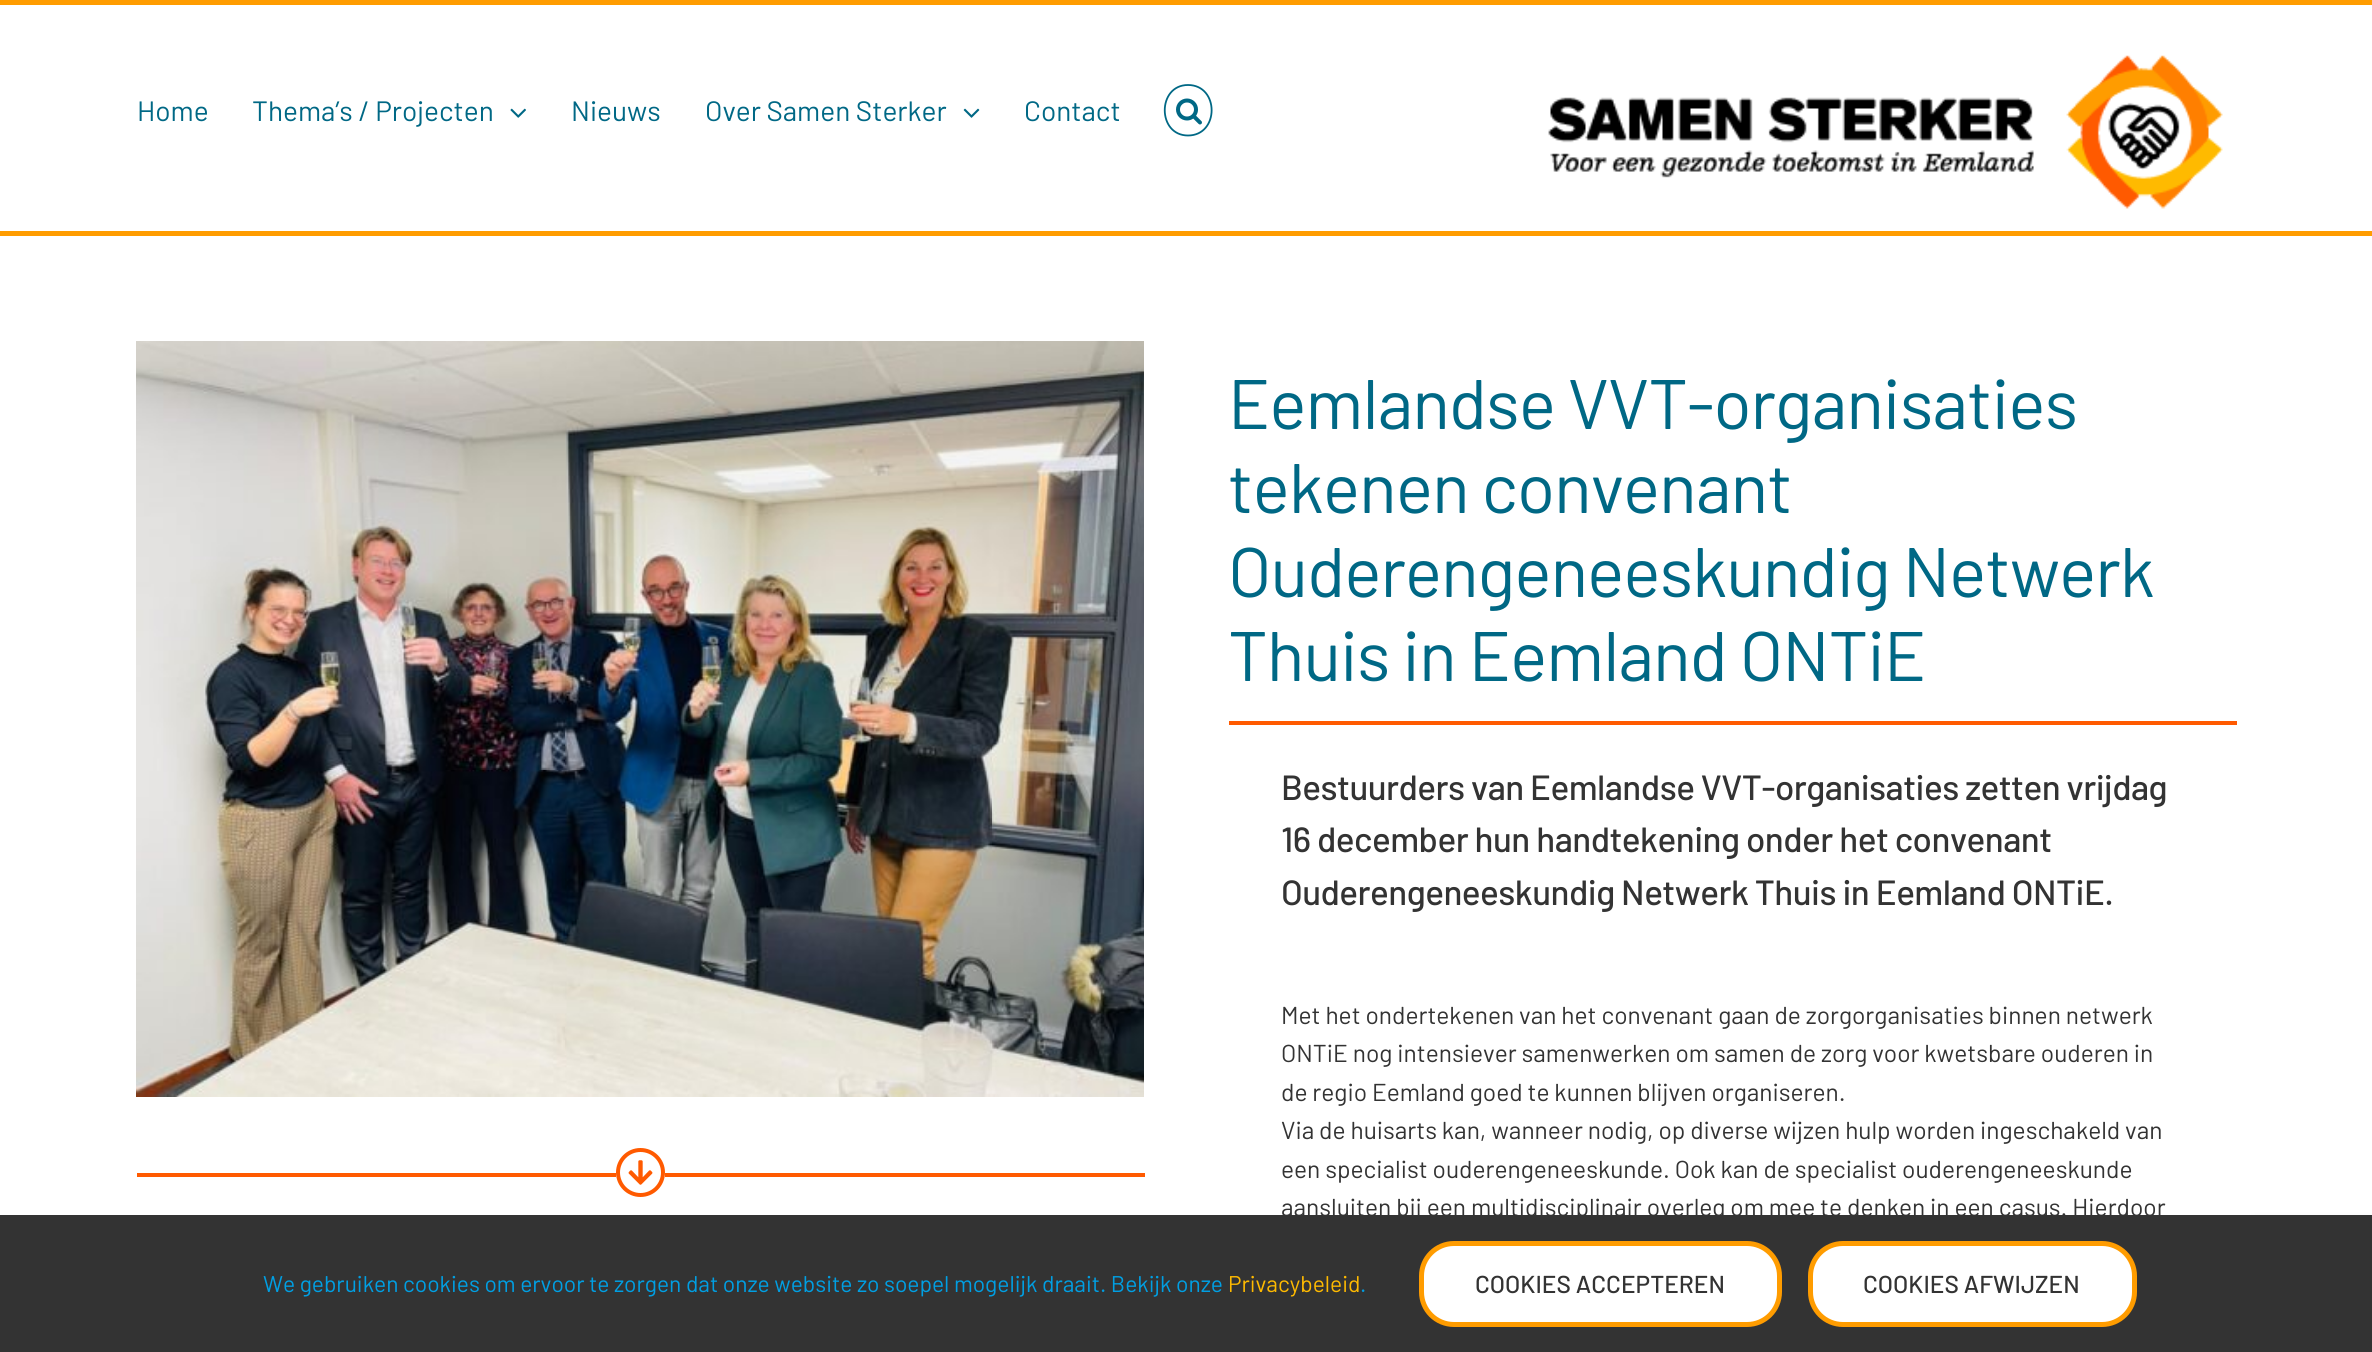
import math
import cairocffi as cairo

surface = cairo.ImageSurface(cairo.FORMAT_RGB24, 2372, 1352)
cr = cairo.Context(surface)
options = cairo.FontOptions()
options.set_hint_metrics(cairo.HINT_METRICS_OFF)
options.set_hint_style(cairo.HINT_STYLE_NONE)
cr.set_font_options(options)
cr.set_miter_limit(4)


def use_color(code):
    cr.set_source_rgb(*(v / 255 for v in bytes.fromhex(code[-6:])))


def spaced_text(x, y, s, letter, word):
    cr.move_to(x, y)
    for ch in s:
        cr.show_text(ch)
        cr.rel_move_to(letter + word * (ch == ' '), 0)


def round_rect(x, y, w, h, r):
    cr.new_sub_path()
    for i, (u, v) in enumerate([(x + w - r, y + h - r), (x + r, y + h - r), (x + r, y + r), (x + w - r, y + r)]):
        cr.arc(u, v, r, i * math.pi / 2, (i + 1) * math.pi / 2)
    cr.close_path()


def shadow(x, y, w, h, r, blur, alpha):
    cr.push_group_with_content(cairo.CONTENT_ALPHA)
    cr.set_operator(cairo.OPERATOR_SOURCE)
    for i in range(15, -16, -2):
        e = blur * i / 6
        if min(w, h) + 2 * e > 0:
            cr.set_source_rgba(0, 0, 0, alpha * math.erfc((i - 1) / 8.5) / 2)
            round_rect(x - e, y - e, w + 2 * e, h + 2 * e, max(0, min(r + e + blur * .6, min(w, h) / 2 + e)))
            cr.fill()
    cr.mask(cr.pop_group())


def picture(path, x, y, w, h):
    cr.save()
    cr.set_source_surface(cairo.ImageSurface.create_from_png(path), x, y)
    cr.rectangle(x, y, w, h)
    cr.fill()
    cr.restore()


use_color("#ffffff")
cr.paint()
use_color("#ff9c00")
cr.rectangle(0, 0, 2372, 5)
cr.fill()
cr.rectangle(0, 231, 2372, 5)
cr.fill()
cr.select_font_face("Barlow")
cr.set_font_size(28)
use_color("#006885")
cr.move_to(137, 121)
cr.show_text("Home")
cr.move_to(252, 121)
cr.show_text("Thema’s / Projecten")
picture("img1.png", 510, 108, 16, 10)
cr.move_to(571, 121)
cr.show_text("Nieuws")
cr.move_to(705, 121)
cr.show_text("Over Samen Sterker")
picture("img2.png", 963, 108, 17, 10)
cr.move_to(1024, 121)
cr.show_text("Contact")
cr.new_path()
cr.move_to(1188, 85)
cr.curve_to(1219.5, 85, 1219.5, 135.5, 1188, 135.5)
cr.curve_to(1157, 135.5, 1157, 85, 1188, 85)
cr.close_path()
cr.set_line_width(1.8)
cr.stroke()
picture("img3.png", 1176, 98, 26, 27)
picture("img4.png", 1548, 55, 675, 154)
picture("img5.png", 136, 341, 1008, 756)
use_color("#ff5a00")
cr.rectangle(137, 1173, 479, 4)
cr.fill()
cr.arc(640.5, 1172.5, 22.5, 0, 2 * math.pi)
cr.set_line_width(4)
cr.stroke()
picture("img6.png", 628, 1160, 25, 25)
cr.rectangle(665, 1173, 480, 4)
cr.fill()
cr.set_font_size(70)
use_color("#006885")
spaced_text(1228, 429, "Eemlandse VVT-organisaties", -1.05, 0)
spaced_text(1228, 513, "tekenen convenant", -1.05, 0)
spaced_text(1228, 597, "Ouderengeneeskundig Netwerk", -1.05, 0)
spaced_text(1228, 681, "Thuis in Eemland ONTiE", -1.05, 0)
use_color("#ff5a00")
cr.rectangle(1229, 721, 1008, 4)
cr.fill()
cr.select_font_face("Barlow Medium")
cr.set_font_size(35)
use_color("#333333")
spaced_text(1281, 800, "Bestuurders van Eemlandse VVT-organisaties zetten vrijdag", -0.53, 0)
spaced_text(1281, 852, "16 december hun handtekening onder het convenant", -0.53, 0)
spaced_text(1281, 905, "Ouderengeneeskundig Netwerk Thuis in Eemland ONTiE.", -0.53, 0)
cr.select_font_face("Barlow")
cr.set_font_size(24.5)
cr.move_to(1281, 1024)
cr.show_text("Met het ondertekenen van het convenant gaan de zorgorganisaties binnen netwerk")
cr.move_to(1281, 1062)
cr.show_text("ONTiE nog intensiever samenwerken om samen de zorg voor kwetsbare ouderen in")
cr.move_to(1281, 1101)
cr.show_text("de regio Eemland goed te kunnen blijven organiseren.")
cr.move_to(1281, 1139)
cr.show_text("Via de huisarts kan, wanneer nodig, op diverse wijzen hulp worden ingeschakeld van")
cr.move_to(1281, 1178)
cr.show_text("een specialist ouderengeneeskunde. Ook kan de specialist ouderengeneeskunde")
cr.move_to(1281, 1216)
cr.show_text("aansluiten bij een multidisciplinair overleg om mee te denken in een casus. Hierdoor")
use_color("#808080")
shadow(2251, 1223, 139, 105, 4, 4.5, 1)
use_color("#333333")
cr.rectangle(0, 1215, 2372, 137)
cr.fill()
cr.set_font_size(22.75)
use_color("#009fe3")
cr.move_to(263, 1292)
cr.show_text("We gebruiken cookies om ervoor te zorgen dat onze website zo soepel mogelijk draait. Bekijk onze")
use_color("#ffba00")
cr.move_to(1228, 1292)
cr.show_text("Privacybeleid")
use_color("#009fe3")
cr.move_to(1360, 1292)
cr.show_text(".")
use_color("#ffffff")
round_rect(1421.5, 1243.5, 358, 81, 32.5)
cr.fill_preserve()
use_color("#ff9c00")
cr.set_line_width(5)
cr.stroke()
cr.select_font_face("Barlow Medium")
cr.set_font_size(24.5)
use_color("#333333")
cr.move_to(1475, 1293)
cr.show_text("COOKIES ACCEPTEREN")
use_color("#ffffff")
round_rect(1810.5, 1243.5, 324, 81, 32.5)
cr.fill_preserve()
use_color("#ff9c00")
cr.stroke()
use_color("#333333")
cr.move_to(1863, 1293)
cr.show_text("COOKIES AFWIJZEN")
surface.write_to_png("result.png")
